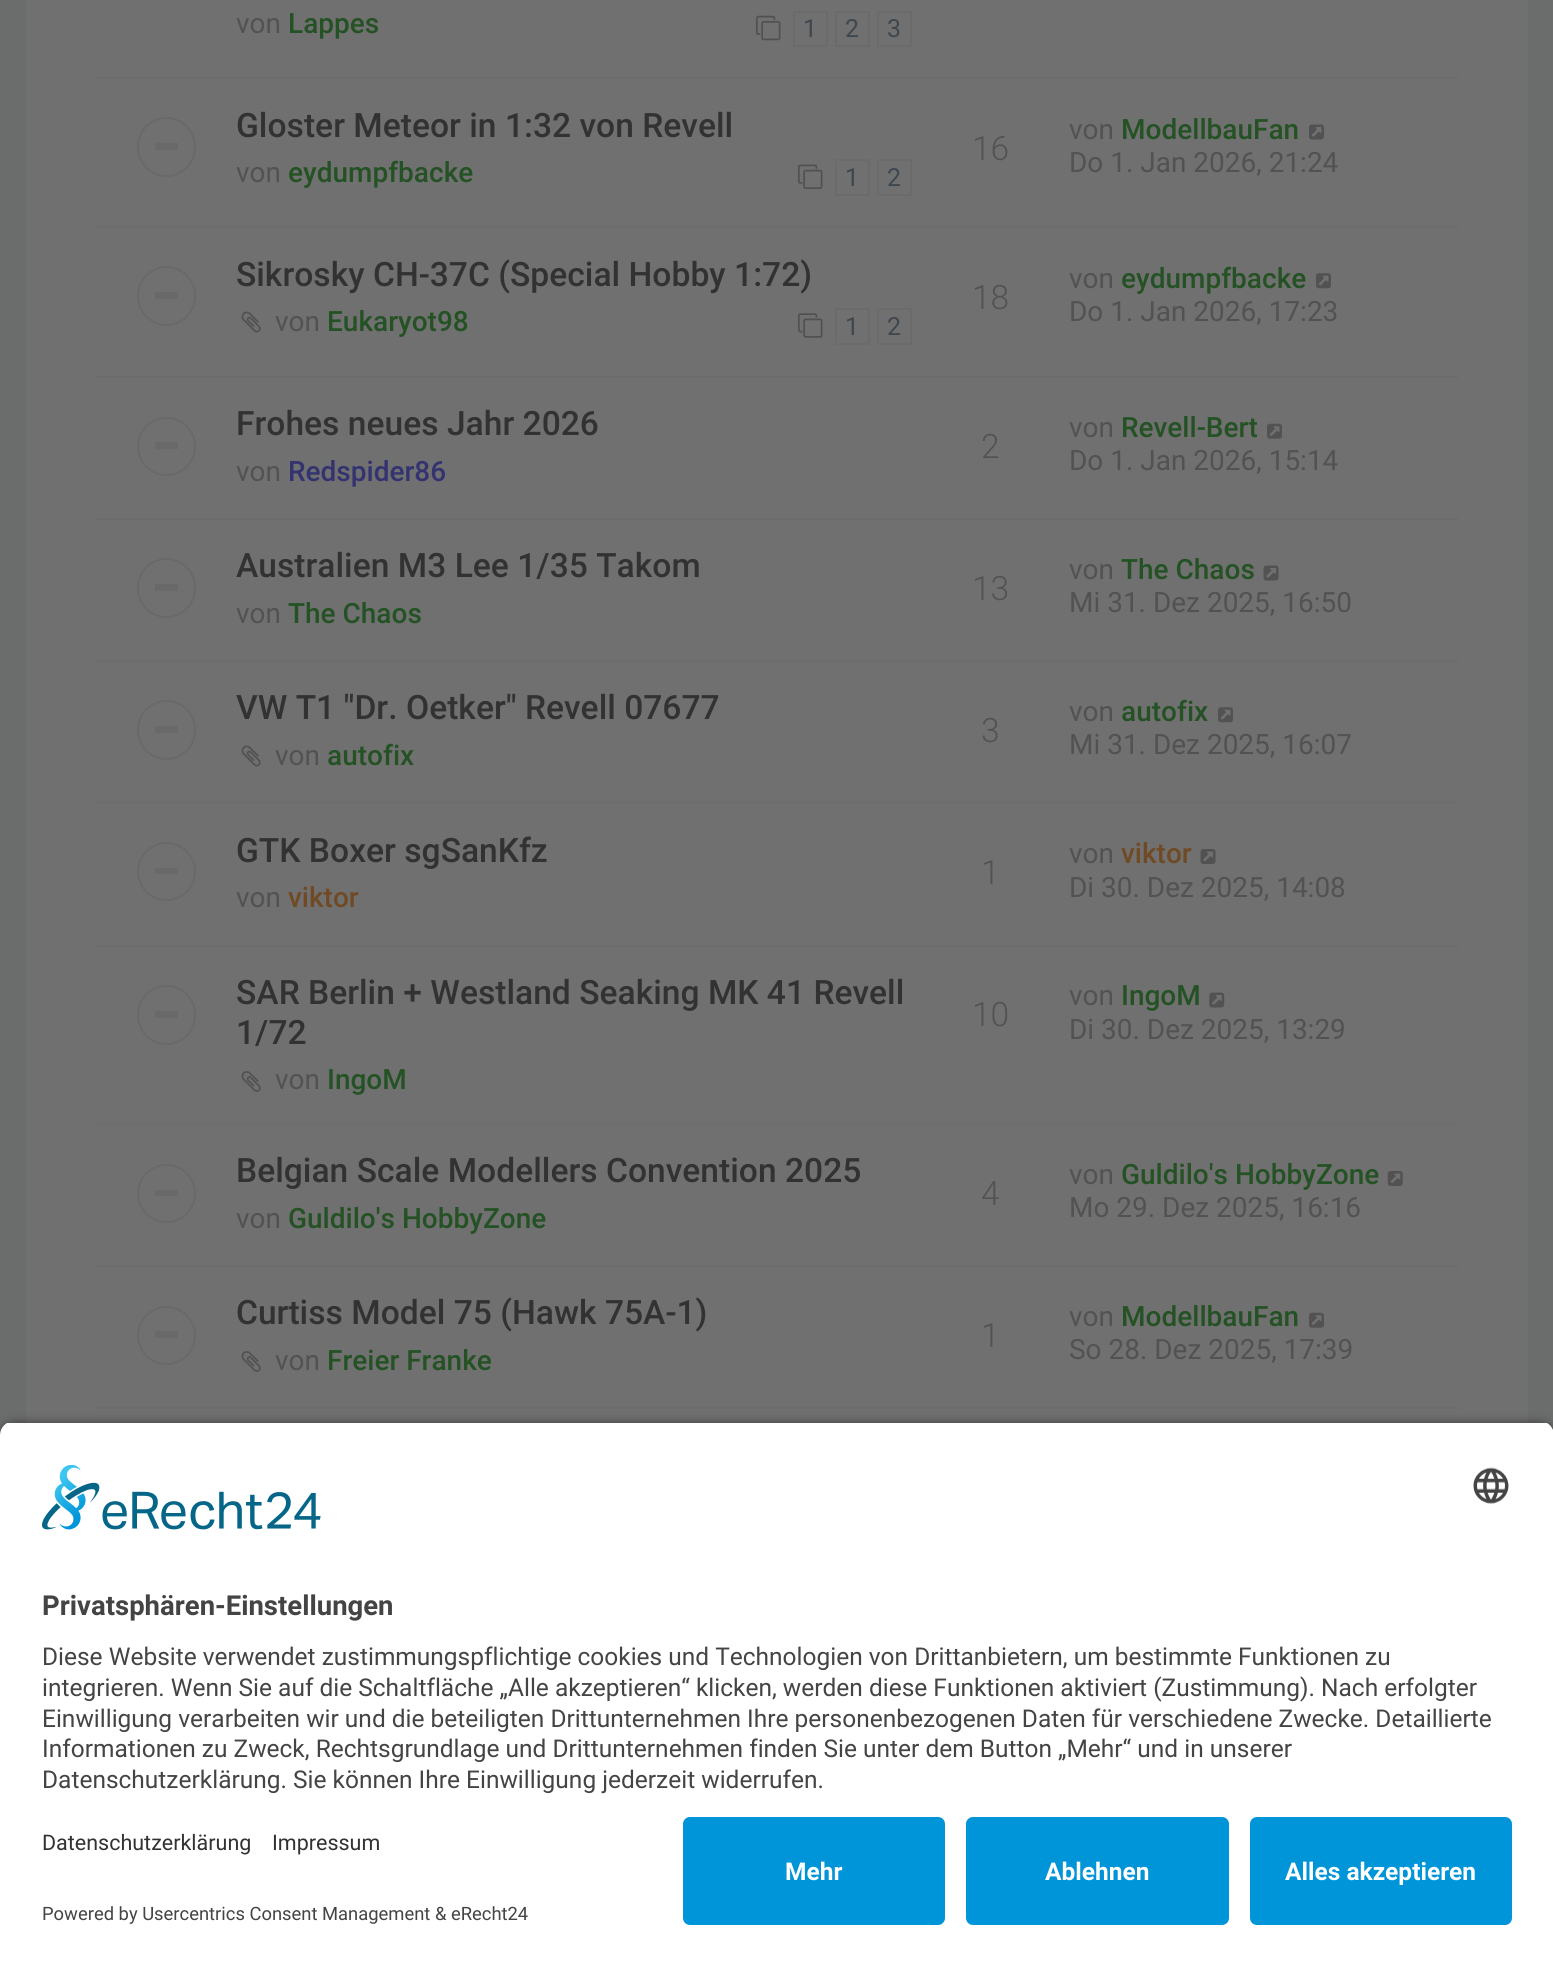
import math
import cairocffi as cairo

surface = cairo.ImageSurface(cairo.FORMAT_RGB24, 1553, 1966)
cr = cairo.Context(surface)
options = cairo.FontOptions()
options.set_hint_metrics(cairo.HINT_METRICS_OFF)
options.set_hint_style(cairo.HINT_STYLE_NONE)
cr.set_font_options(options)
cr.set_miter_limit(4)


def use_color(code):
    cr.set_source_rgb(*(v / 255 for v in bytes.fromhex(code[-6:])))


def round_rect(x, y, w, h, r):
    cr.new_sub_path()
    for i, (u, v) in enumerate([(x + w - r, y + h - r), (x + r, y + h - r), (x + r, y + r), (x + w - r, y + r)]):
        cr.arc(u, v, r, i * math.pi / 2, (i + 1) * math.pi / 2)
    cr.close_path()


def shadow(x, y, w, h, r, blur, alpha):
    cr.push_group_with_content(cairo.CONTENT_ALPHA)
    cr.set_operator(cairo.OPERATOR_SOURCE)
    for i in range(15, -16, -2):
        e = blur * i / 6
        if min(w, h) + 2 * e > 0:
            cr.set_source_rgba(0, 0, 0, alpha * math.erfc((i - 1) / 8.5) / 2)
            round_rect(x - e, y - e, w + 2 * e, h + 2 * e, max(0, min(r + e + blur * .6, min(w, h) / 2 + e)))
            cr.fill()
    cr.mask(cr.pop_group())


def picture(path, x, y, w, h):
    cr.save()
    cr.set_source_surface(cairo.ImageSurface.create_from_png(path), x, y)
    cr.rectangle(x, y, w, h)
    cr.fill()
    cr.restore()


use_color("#6b6c6c")
cr.paint()
use_color("#707070")
cr.rectangle(26, 0, 1502, 1423)
cr.fill()
use_color("#6b6c6c")
cr.rectangle(96, 77, 1362, 2)
cr.fill()
cr.select_font_face("Roboto")
cr.set_font_size(28)
use_color("#525252")
cr.move_to(236, 33)
cr.show_text("von")
cr.select_font_face("Roboto Medium")
use_color("#245224")
cr.move_to(288, 33)
cr.show_text("Lappes")
picture("img1.png", 756, 15, 25, 26)
cr.rectangle(794, 12, 33, 34)
use_color("#6b6b6b")
cr.stroke()
cr.select_font_face("Roboto")
cr.set_font_size(25)
use_color("#3f474e")
cr.move_to(803, 37)
cr.show_text("1")
cr.rectangle(836, 12, 33, 34)
use_color("#6b6b6b")
cr.stroke()
use_color("#3f474e")
cr.move_to(845, 37)
cr.show_text("2")
cr.rectangle(878, 12, 33, 34)
use_color("#6b6b6b")
cr.stroke()
use_color("#3f474e")
cr.move_to(887, 37)
cr.show_text("3")
use_color("#6b6c6c")
cr.rectangle(96, 226, 1362, 2)
cr.fill()
round_rect(138, 118, 57, 58, 28.5)
use_color("#696969")
cr.stroke()
cr.rectangle(155, 143, 23, 7)
cr.fill()
cr.select_font_face("Roboto Medium")
cr.set_font_size(33.6)
use_color("#323232")
cr.move_to(236, 137)
cr.show_text("Gloster Meteor in 1:32 von Revell")
cr.select_font_face("Roboto")
cr.set_font_size(28)
use_color("#525252")
cr.move_to(236, 182)
cr.show_text("von")
cr.select_font_face("Roboto Medium")
use_color("#245224")
cr.move_to(288, 182)
cr.show_text("eydumpfbacke")
picture("img2.png", 798, 164, 25, 25)
cr.rectangle(836, 160, 33, 35)
use_color("#6b6b6b")
cr.stroke()
cr.select_font_face("Roboto")
cr.set_font_size(25)
use_color("#3f474e")
cr.move_to(845, 186)
cr.show_text("1")
cr.rectangle(878, 160, 33, 35)
use_color("#6b6b6b")
cr.stroke()
use_color("#3f474e")
cr.move_to(887, 186)
cr.show_text("2")
cr.select_font_face("Roboto Light")
cr.set_font_size(33.6)
use_color("#525252")
cr.move_to(972, 160)
cr.show_text("16")
cr.select_font_face("Roboto")
cr.set_font_size(28)
cr.move_to(1069, 139)
cr.show_text("von")
cr.select_font_face("Roboto Medium")
use_color("#245224")
cr.move_to(1121, 139)
cr.show_text("ModellbauFan")
picture("img3.png", 1309, 124, 15, 16)
cr.select_font_face("Roboto")
use_color("#525252")
cr.move_to(1069, 172)
cr.show_text("Do 1. Jan 2026, 21:24")
use_color("#6b6c6c")
cr.rectangle(96, 376, 1362, 2)
cr.fill()
round_rect(138, 267, 57, 58, 28.5)
use_color("#696969")
cr.stroke()
cr.rectangle(155, 292, 23, 7)
cr.fill()
cr.select_font_face("Roboto Medium")
cr.set_font_size(33.6)
use_color("#323232")
cr.move_to(236, 286)
cr.show_text("Sikrosky CH-37C (Special Hobby 1:72)")
picture("img4.png", 241, 311, 20, 22)
cr.select_font_face("Roboto")
cr.set_font_size(28)
use_color("#525252")
cr.move_to(275, 331)
cr.show_text("von")
cr.select_font_face("Roboto Medium")
use_color("#245224")
cr.move_to(327, 331)
cr.show_text("Eukaryot98")
picture("img5.png", 798, 313, 25, 25)
cr.rectangle(836, 309, 33, 35)
use_color("#6b6b6b")
cr.stroke()
cr.select_font_face("Roboto")
cr.set_font_size(25)
use_color("#3f474e")
cr.move_to(845, 335)
cr.show_text("1")
cr.rectangle(878, 309, 33, 35)
use_color("#6b6b6b")
cr.stroke()
use_color("#3f474e")
cr.move_to(887, 335)
cr.show_text("2")
cr.select_font_face("Roboto Light")
cr.set_font_size(33.6)
use_color("#525252")
cr.move_to(972, 309)
cr.show_text("18")
cr.select_font_face("Roboto")
cr.set_font_size(28)
cr.move_to(1069, 288)
cr.show_text("von")
cr.select_font_face("Roboto Medium")
use_color("#245224")
cr.move_to(1121, 288)
cr.show_text("eydumpfbacke")
picture("img6.png", 1316, 273, 15, 16)
cr.select_font_face("Roboto")
use_color("#525252")
cr.move_to(1069, 321)
cr.show_text("Do 1. Jan 2026, 17:23")
use_color("#6b6c6c")
cr.rectangle(96, 518, 1362, 2)
cr.fill()
cr.arc(166.5, 446.5, 28.5, 0, 2 * math.pi)
use_color("#696969")
cr.stroke()
cr.rectangle(155, 442, 23, 7)
cr.fill()
cr.select_font_face("Roboto Medium")
cr.set_font_size(33.6)
use_color("#323232")
cr.move_to(236, 435)
cr.show_text("Frohes neues Jahr 2026")
cr.select_font_face("Roboto")
cr.set_font_size(28)
use_color("#525252")
cr.move_to(236, 481)
cr.show_text("von")
cr.select_font_face("Roboto Medium")
use_color("#333370")
cr.move_to(288, 481)
cr.show_text("Redspider86")
cr.select_font_face("Roboto Light")
cr.set_font_size(33.6)
use_color("#525252")
cr.move_to(981, 458)
cr.show_text("2")
cr.select_font_face("Roboto")
cr.set_font_size(28)
cr.move_to(1069, 437)
cr.show_text("von")
cr.select_font_face("Roboto Medium")
use_color("#245224")
cr.move_to(1121, 437)
cr.show_text("Revell-Bert")
picture("img7.png", 1267, 423, 15, 16)
cr.select_font_face("Roboto")
use_color("#525252")
cr.move_to(1069, 470)
cr.show_text("Do 1. Jan 2026, 15:14")
use_color("#6b6c6c")
cr.rectangle(96, 660, 1362, 2)
cr.fill()
round_rect(138, 559, 57, 58, 28.5)
use_color("#696969")
cr.stroke()
cr.rectangle(155, 584, 23, 7)
cr.fill()
cr.select_font_face("Roboto Medium")
cr.set_font_size(33.6)
use_color("#323232")
cr.move_to(236, 577)
cr.show_text("Australien M3 Lee 1/35 Takom")
cr.select_font_face("Roboto")
cr.set_font_size(28)
use_color("#525252")
cr.move_to(236, 623)
cr.show_text("von")
cr.select_font_face("Roboto Medium")
use_color("#245224")
cr.move_to(288, 623)
cr.show_text("The Chaos")
cr.select_font_face("Roboto Light")
cr.set_font_size(33.6)
use_color("#525252")
cr.move_to(972, 600)
cr.show_text("13")
cr.select_font_face("Roboto")
cr.set_font_size(28)
cr.move_to(1069, 579)
cr.show_text("von")
cr.select_font_face("Roboto Medium")
use_color("#245224")
cr.move_to(1121, 579)
cr.show_text("The Chaos")
picture("img8.png", 1263, 565, 16, 16)
cr.select_font_face("Roboto")
use_color("#525252")
cr.move_to(1069, 612)
cr.show_text("Mi 31. Dez 2025, 16:50")
use_color("#6b6c6c")
cr.rectangle(96, 802, 1362, 1)
cr.fill()
round_rect(138, 701, 57, 58, 28.5)
use_color("#696969")
cr.stroke()
cr.rectangle(155, 726, 23, 7)
cr.fill()
cr.select_font_face("Roboto Medium")
cr.set_font_size(33.6)
use_color("#323232")
cr.move_to(236, 719)
cr.show_text("VW T1 \"Dr. Oetker\" Revell 07677")
picture("img4.png", 241, 745, 20, 22)
cr.select_font_face("Roboto")
cr.set_font_size(28)
use_color("#525252")
cr.move_to(275, 765)
cr.show_text("von")
cr.select_font_face("Roboto Medium")
use_color("#245224")
cr.move_to(327, 765)
cr.show_text("autofix")
cr.select_font_face("Roboto Light")
cr.set_font_size(33.6)
use_color("#525252")
cr.move_to(981, 742)
cr.show_text("3")
cr.select_font_face("Roboto")
cr.set_font_size(28)
cr.move_to(1069, 721)
cr.show_text("von")
cr.select_font_face("Roboto Medium")
use_color("#245224")
cr.move_to(1121, 721)
cr.show_text("autofix")
picture("img6.png", 1218, 707, 15, 16)
cr.select_font_face("Roboto")
use_color("#525252")
cr.move_to(1069, 754)
cr.show_text("Mi 31. Dez 2025, 16:07")
use_color("#6b6c6c")
cr.rectangle(96, 945, 1362, 2)
cr.fill()
cr.arc(166.5, 871.5, 28.5, 0, 2 * math.pi)
use_color("#696969")
cr.stroke()
cr.rectangle(155, 868, 23, 6)
cr.fill()
cr.select_font_face("Roboto Medium")
cr.set_font_size(33.6)
use_color("#323232")
cr.move_to(236, 862)
cr.show_text("GTK Boxer sgSanKfz")
cr.select_font_face("Roboto")
cr.set_font_size(28)
use_color("#525252")
cr.move_to(236, 907)
cr.show_text("von")
cr.select_font_face("Roboto Medium")
use_color("#704a24")
cr.move_to(288, 907)
cr.show_text("viktor")
cr.select_font_face("Roboto Light")
cr.set_font_size(33.6)
use_color("#525252")
cr.move_to(981, 884)
cr.show_text("1")
cr.select_font_face("Roboto")
cr.set_font_size(28)
cr.move_to(1069, 863)
cr.show_text("von")
cr.select_font_face("Roboto Medium")
use_color("#704a24")
cr.move_to(1121, 863)
cr.show_text("viktor")
picture("img9.png", 1200, 849, 16, 15)
cr.select_font_face("Roboto")
use_color("#525252")
cr.move_to(1069, 897)
cr.show_text("Di 30. Dez 2025, 14:08")
use_color("#6b6c6c")
cr.rectangle(96, 1124, 1362, 1)
cr.fill()
round_rect(138, 986, 57, 58, 28.5)
use_color("#696969")
cr.stroke()
cr.rectangle(155, 1011, 23, 7)
cr.fill()
cr.select_font_face("Roboto Medium")
cr.set_font_size(33.6)
use_color("#323232")
cr.move_to(236, 1004)
cr.show_text("SAR Berlin + Westland Seaking MK 41 Revell")
cr.move_to(236, 1044)
cr.show_text("1/72")
picture("img10.png", 241, 1071, 20, 21)
cr.select_font_face("Roboto")
cr.set_font_size(28)
use_color("#525252")
cr.move_to(275, 1089)
cr.show_text("von")
cr.select_font_face("Roboto Medium")
use_color("#245224")
cr.move_to(327, 1089)
cr.show_text("IngoM")
cr.select_font_face("Roboto Light")
cr.set_font_size(33.6)
use_color("#525252")
cr.move_to(972, 1026)
cr.show_text("10")
cr.select_font_face("Roboto")
cr.set_font_size(28)
cr.move_to(1069, 1005)
cr.show_text("von")
cr.select_font_face("Roboto Medium")
use_color("#245224")
cr.move_to(1121, 1005)
cr.show_text("IngoM")
picture("img11.png", 1209, 992, 16, 16)
cr.select_font_face("Roboto")
use_color("#525252")
cr.move_to(1069, 1039)
cr.show_text("Di 30. Dez 2025, 13:29")
use_color("#6b6c6c")
cr.rectangle(96, 1265, 1362, 2)
cr.fill()
cr.arc(166.5, 1193.5, 28.5, 0, 2 * math.pi)
use_color("#696969")
cr.stroke()
cr.rectangle(155, 1190, 23, 6)
cr.fill()
cr.select_font_face("Roboto Medium")
cr.set_font_size(33.6)
use_color("#323232")
cr.move_to(236, 1182)
cr.show_text("Belgian Scale Modellers Convention 2025")
cr.select_font_face("Roboto")
cr.set_font_size(28)
use_color("#525252")
cr.move_to(236, 1228)
cr.show_text("von")
cr.select_font_face("Roboto Medium")
use_color("#245224")
cr.move_to(288, 1228)
cr.show_text("Guldilo's HobbyZone")
cr.select_font_face("Roboto Light")
cr.set_font_size(33.6)
use_color("#525252")
cr.move_to(981, 1205)
cr.show_text("4")
cr.select_font_face("Roboto")
cr.set_font_size(28)
cr.move_to(1069, 1184)
cr.show_text("von")
cr.select_font_face("Roboto Medium")
use_color("#245224")
cr.move_to(1121, 1184)
cr.show_text("Guldilo's HobbyZone")
picture("img12.png", 1387, 1171, 16, 15)
cr.select_font_face("Roboto")
use_color("#525252")
cr.move_to(1069, 1217)
cr.show_text("Mo 29. Dez 2025, 16:16")
use_color("#6b6c6c")
cr.rectangle(96, 1407, 1362, 2)
cr.fill()
cr.arc(166.5, 1335.5, 28.5, 0, 2 * math.pi)
use_color("#696969")
cr.stroke()
cr.rectangle(155, 1331, 23, 7)
cr.fill()
cr.select_font_face("Roboto Medium")
cr.set_font_size(33.6)
use_color("#323232")
cr.move_to(236, 1324)
cr.show_text("Curtiss Model 75 (Hawk 75A-1)")
picture("img10.png", 241, 1351, 20, 21)
cr.select_font_face("Roboto")
cr.set_font_size(28)
use_color("#525252")
cr.move_to(275, 1370)
cr.show_text("von")
cr.select_font_face("Roboto Medium")
use_color("#245224")
cr.move_to(327, 1370)
cr.show_text("Freier Franke")
cr.select_font_face("Roboto Light")
cr.set_font_size(33.6)
use_color("#525252")
cr.move_to(981, 1347)
cr.show_text("1")
cr.select_font_face("Roboto")
cr.set_font_size(28)
cr.move_to(1069, 1326)
cr.show_text("von")
cr.select_font_face("Roboto Medium")
use_color("#245224")
cr.move_to(1121, 1326)
cr.show_text("ModellbauFan")
picture("img7.png", 1309, 1312, 15, 16)
cr.select_font_face("Roboto")
use_color("#525252")
cr.move_to(1069, 1359)
cr.show_text("So 28. Dez 2025, 17:39")
use_color("#000000")
shadow(0, 1426, 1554, 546, 14, 6, 0.8)
cr.save()
cr.new_path()
cr.move_to(14, 1421)
cr.line_to(1540, 1421)
cr.curve_to(1547.5, 1421, 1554, 1427.5, 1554, 1435)
cr.line_to(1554, 1803)
cr.line_to(0, 1803)
cr.line_to(0, 1435)
cr.curve_to(0, 1427.5, 6.5, 1421, 14, 1421)
cr.close_path()
cr.clip()
use_color("#ffffff")
cr.rectangle(0, 1423, 1553, 380)
cr.fill()
cr.restore()
picture("img13.png", 42, 1465, 279, 65)
picture("img14.png", 1473, 1467, 36, 37)
cr.select_font_face("Roboto", cairo.FONT_SLANT_NORMAL, cairo.FONT_WEIGHT_BOLD)
cr.set_font_size(27.5)
use_color("#444444")
cr.move_to(42, 1615)
cr.show_text("Privatsphären-Einstellungen")
cr.select_font_face("Roboto")
cr.set_font_size(24.5)
cr.move_to(42, 1665)
cr.show_text("Diese Website verwendet zustimmungspflichtige cookies und Technologien von Drittanbietern, um bestimmte Funktionen zu")
cr.move_to(42, 1696)
cr.show_text("integrieren. Wenn Sie auf die Schaltfläche „Alle akzeptieren“ klicken, werden diese Funktionen aktiviert (Zustimmung). Nach erfolgter")
cr.move_to(42, 1727)
cr.show_text("Einwilligung verarbeiten wir und die beteiligten Drittunternehmen Ihre personenbezogenen Daten für verschiedene Zwecke. Detaillierte")
cr.move_to(42, 1757)
cr.show_text("Informationen zu Zweck, Rechtsgrundlage und Drittunternehmen finden Sie unter dem Button „Mehr“ und in unserer")
cr.move_to(42, 1788)
cr.show_text("Datenschutzerklärung. Sie können Ihre Einwilligung jederzeit widerrufen.")
use_color("#ffffff")
cr.rectangle(0, 1803, 1553, 163)
cr.fill()
cr.set_font_size(21.5)
use_color("#323232")
cr.move_to(42, 1850)
cr.show_text("Datenschutzerklärung")
cr.move_to(272, 1850)
cr.show_text("Impressum")
cr.set_font_size(18.4)
use_color("#444444")
cr.move_to(42, 1920)
cr.show_text("Powered by Usercentrics Consent Management & eRecht24")
use_color("#0094d8")
round_rect(683, 1817, 262, 108, 7)
cr.fill()
cr.select_font_face("Roboto", cairo.FONT_SLANT_NORMAL, cairo.FONT_WEIGHT_BOLD)
cr.set_font_size(24.5)
use_color("#ffffff")
cr.move_to(785, 1880)
cr.show_text("Mehr")
use_color("#0094d8")
round_rect(966, 1817, 263, 108, 7)
cr.fill()
use_color("#ffffff")
cr.move_to(1045, 1880)
cr.show_text("Ablehnen")
use_color("#0094d8")
round_rect(1250, 1817, 262, 108, 7)
cr.fill()
use_color("#ffffff")
cr.move_to(1285, 1880)
cr.show_text("Alles akzeptieren")
surface.write_to_png("result.png")
